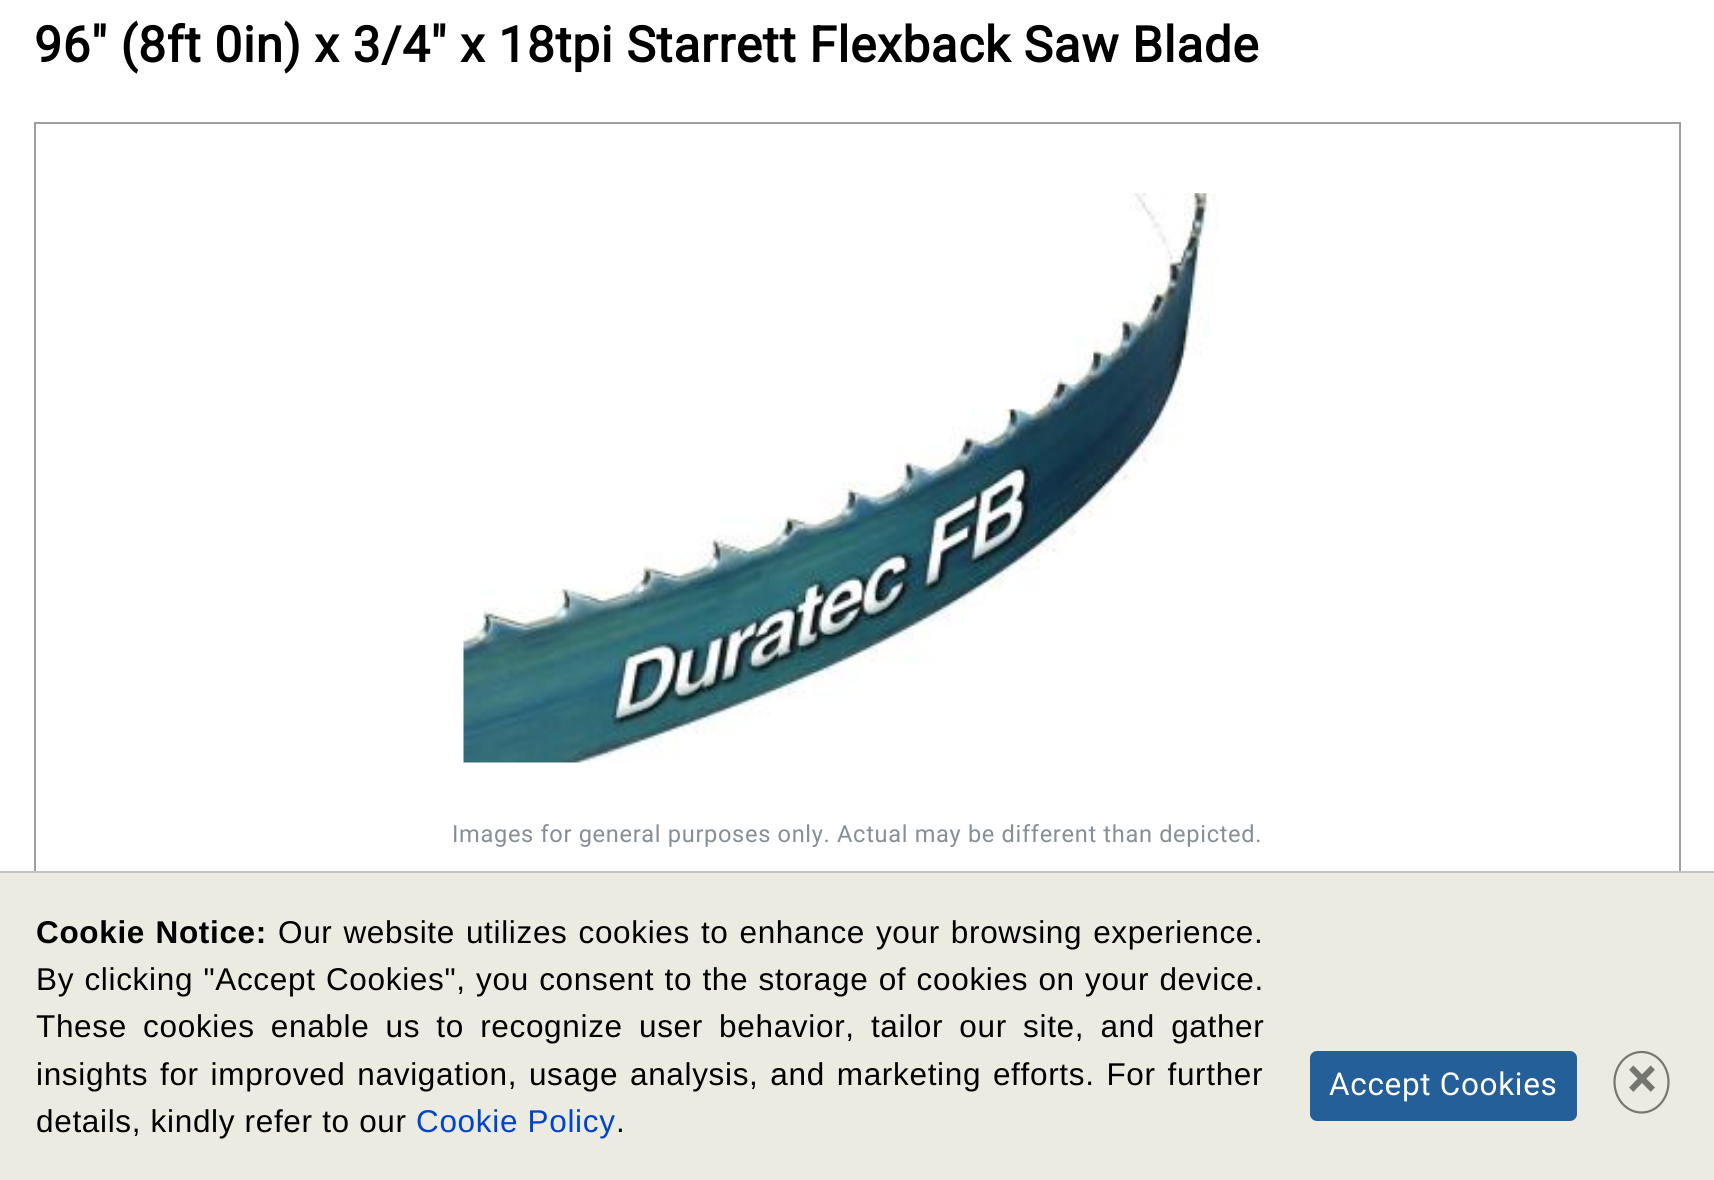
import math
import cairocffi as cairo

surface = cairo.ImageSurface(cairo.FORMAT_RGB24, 1714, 1180)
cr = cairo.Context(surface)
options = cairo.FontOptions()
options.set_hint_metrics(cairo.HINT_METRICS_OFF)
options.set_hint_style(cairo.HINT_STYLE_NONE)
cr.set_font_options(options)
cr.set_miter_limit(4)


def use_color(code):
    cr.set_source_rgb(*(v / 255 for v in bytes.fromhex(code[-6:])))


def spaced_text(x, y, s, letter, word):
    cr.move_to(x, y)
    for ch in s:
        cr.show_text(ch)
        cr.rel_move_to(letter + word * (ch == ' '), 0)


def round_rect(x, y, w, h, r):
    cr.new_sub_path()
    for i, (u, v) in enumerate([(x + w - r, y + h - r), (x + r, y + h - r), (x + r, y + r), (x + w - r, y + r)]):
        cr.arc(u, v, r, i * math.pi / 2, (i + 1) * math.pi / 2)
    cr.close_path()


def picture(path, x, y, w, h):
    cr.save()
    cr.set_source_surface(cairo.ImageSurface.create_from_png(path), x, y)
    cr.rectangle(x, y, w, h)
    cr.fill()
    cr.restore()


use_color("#ffffff")
cr.paint()
cr.select_font_face("Roboto", cairo.FONT_SLANT_NORMAL, cairo.FONT_WEIGHT_BOLD)
cr.set_font_size(49.5)
use_color("#000000")
spaced_text(34, 62, "96\" (8ft 0in) x 3/4\" x 18tpi Starrett Flexback Saw Blade", 0.67, 0)
cr.rectangle(35, 123, 1645, 871)
use_color("#a09f9f")
cr.stroke()
picture("img1.png", 463, 193, 756, 570)
cr.select_font_face("Roboto")
cr.set_font_size(23.6)
use_color("#868e96")
spaced_text(452, 842, "Images for general purposes only. Actual may be different than depicted.", 0.67, 0)
use_color("#ebebe1")
cr.rectangle(0, 873, 1714, 307)
cr.fill()
use_color("#c2c2c2")
cr.rectangle(0, 871, 1714, 2)
cr.fill()
cr.select_font_face("Liberation Sans", cairo.FONT_SLANT_NORMAL, cairo.FONT_WEIGHT_BOLD)
cr.set_font_size(31.5)
use_color("#000000")
spaced_text(36, 943, "Cookie Notice:", 0.67, 1)
cr.select_font_face("Liberation Sans")
spaced_text(278, 943, "Our website utilizes cookies to enhance your browsing experience.", 0.67, 1.5)
spaced_text(36, 990, "By clicking \"Accept Cookies\", you consent to the storage of cookies on your device.", 0.67, 0.9)
spaced_text(36, 1037, "These cookies enable us to recognize user behavior, tailor our site, and gather", 0.67, 6.75)
spaced_text(36, 1085, "insights for improved navigation, usage analysis, and marketing efforts. For further", 0.67, 2.4)
use_color("#245f9a")
round_rect(1311, 1052, 265, 68, 6)
cr.fill_preserve()
cr.stroke()
cr.select_font_face("Roboto")
use_color("#ffffff")
spaced_text(1329, 1095, "Accept Cookies", 0.67, 0)
cr.new_path()
cr.move_to(1641.5, 1052)
cr.curve_to(1656.5, 1052, 1668.5, 1065.5, 1668.5, 1082)
cr.curve_to(1668.5, 1099, 1656.5, 1112.5, 1641.5, 1112.5)
cr.curve_to(1626.5, 1112.5, 1614.5, 1099, 1614.5, 1082)
cr.curve_to(1614.5, 1065.5, 1626.5, 1052, 1641.5, 1052)
cr.close_path()
use_color("#767671")
cr.set_line_width(2.2)
cr.stroke()
cr.select_font_face("Roboto", cairo.FONT_SLANT_NORMAL, cairo.FONT_WEIGHT_BOLD)
cr.set_font_size(54)
cr.move_to(1627, 1097)
cr.show_text("×")
cr.select_font_face("Liberation Sans")
cr.set_font_size(31.5)
use_color("#000000")
spaced_text(36, 1132, "details, kindly refer to our", 0.67, 0)
use_color("#0044cc")
spaced_text(416, 1132, "Cookie Policy", 0.67, 0)
use_color("#000000")
spaced_text(616, 1132, ".", 0.67, 0)
surface.write_to_png("result.png")
